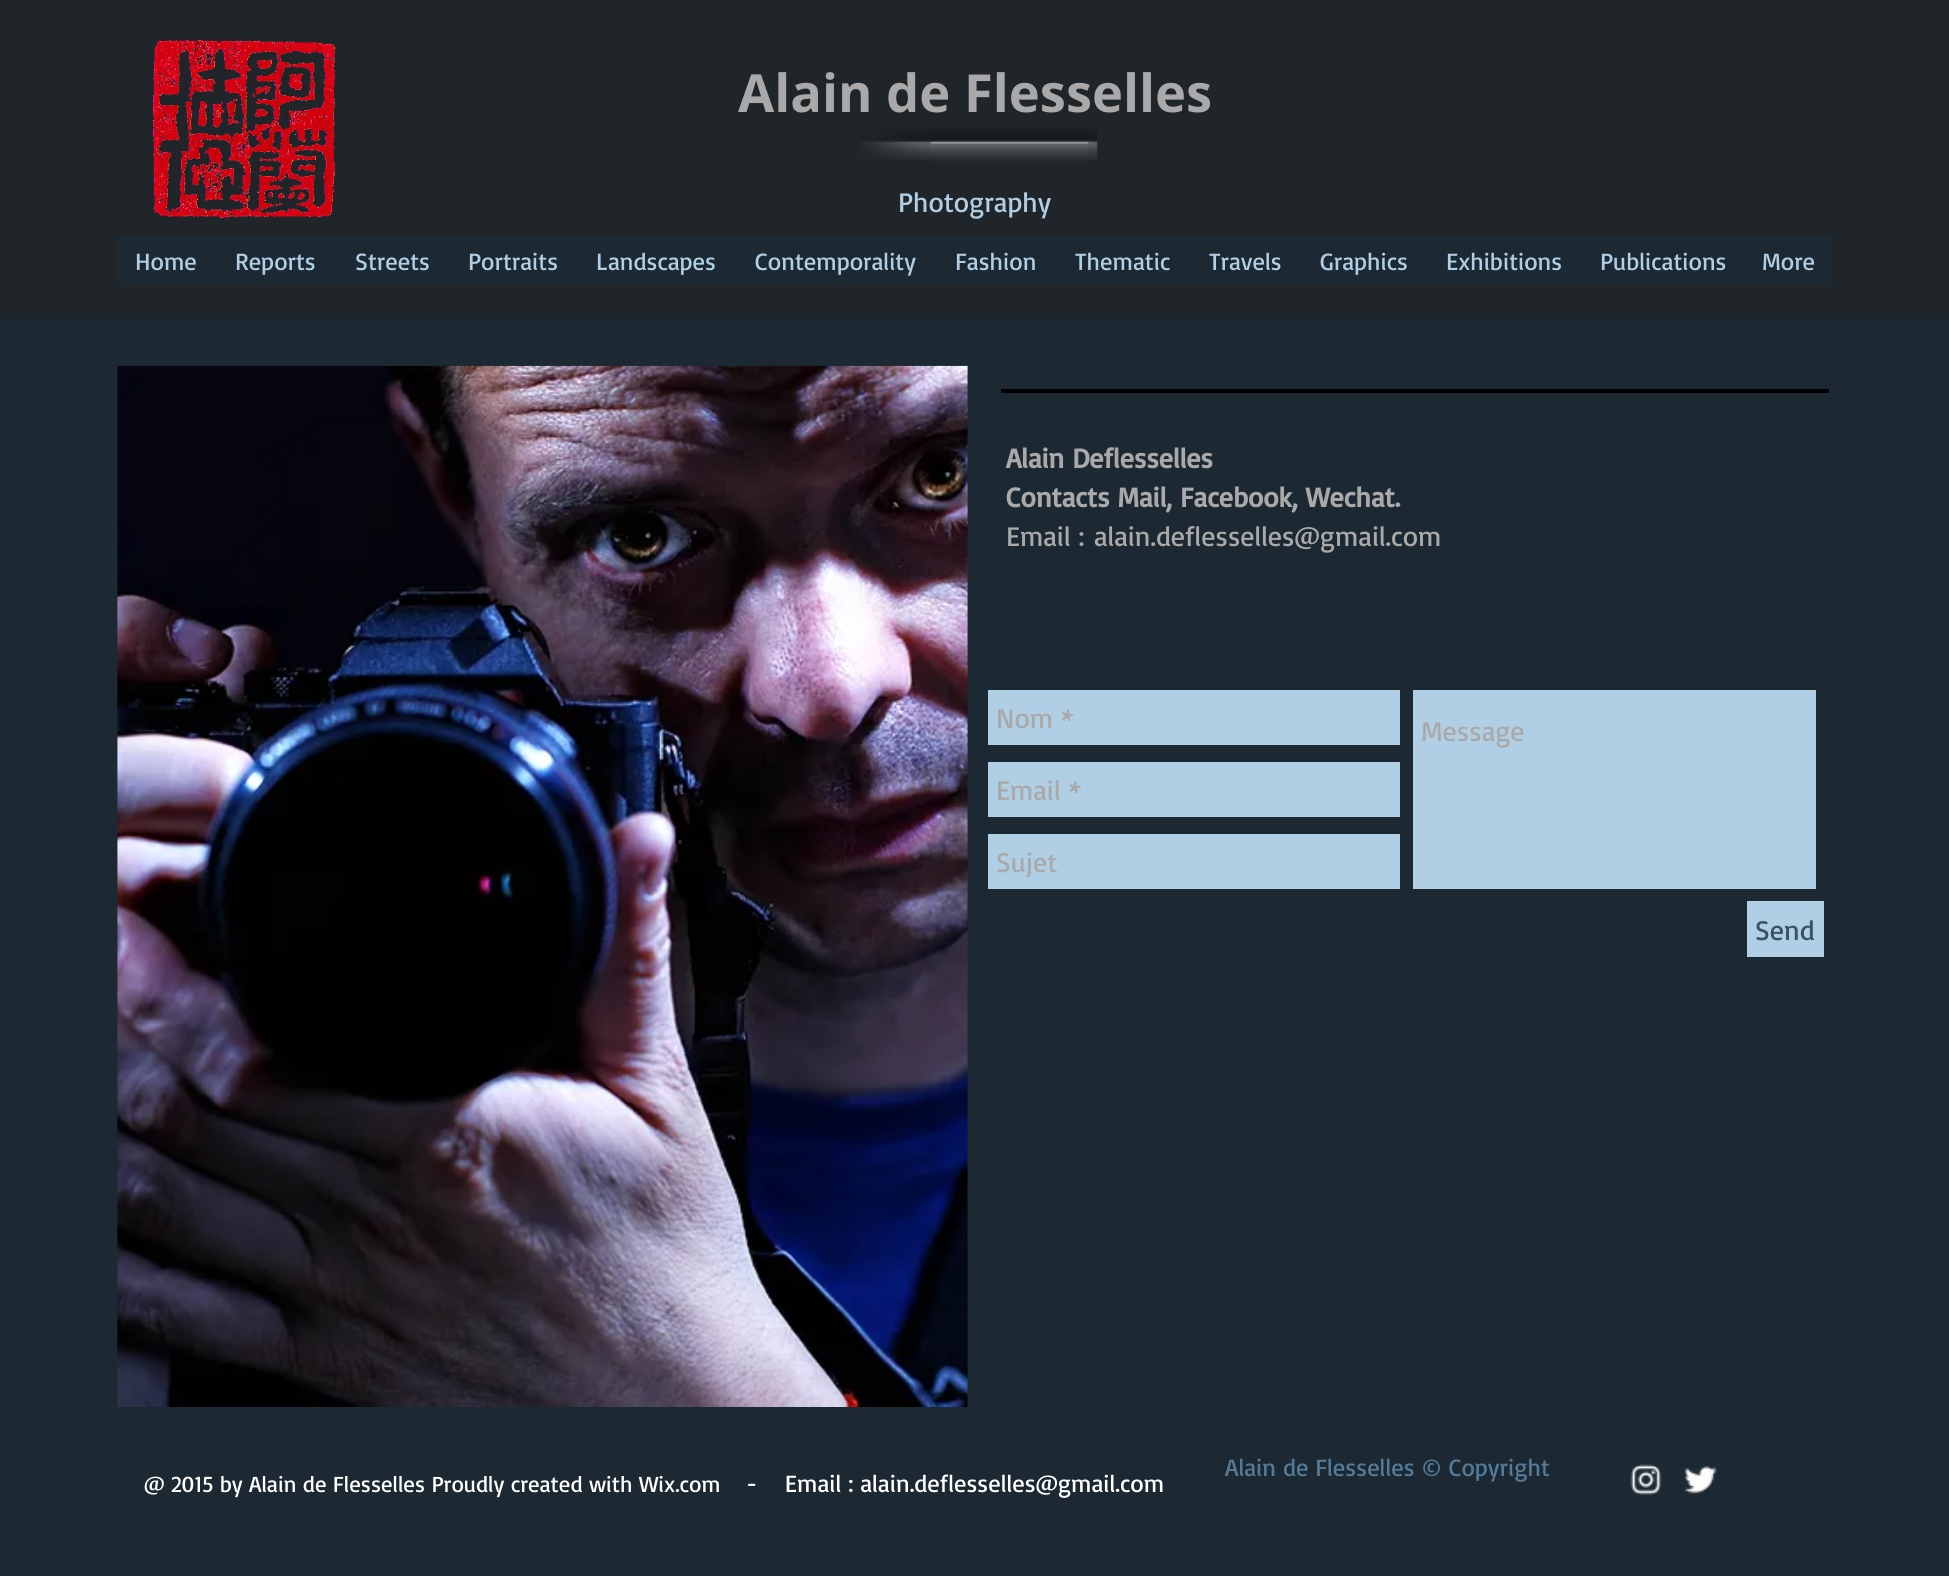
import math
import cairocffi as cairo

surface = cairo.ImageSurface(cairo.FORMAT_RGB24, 1949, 1576)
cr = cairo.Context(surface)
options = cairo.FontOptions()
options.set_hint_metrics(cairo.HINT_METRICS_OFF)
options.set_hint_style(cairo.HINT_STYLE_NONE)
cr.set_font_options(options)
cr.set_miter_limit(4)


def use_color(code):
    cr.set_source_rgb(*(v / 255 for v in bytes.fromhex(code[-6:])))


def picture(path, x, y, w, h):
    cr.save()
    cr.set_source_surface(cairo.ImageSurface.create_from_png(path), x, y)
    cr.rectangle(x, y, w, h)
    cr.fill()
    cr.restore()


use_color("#1c2933")
cr.paint()
use_color("#20252a")
cr.rectangle(0, 0, 1949, 319)
cr.fill()
picture("img1.png", 153, 40, 183, 178)
cr.select_font_face("Open Sans", cairo.FONT_SLANT_NORMAL, cairo.FONT_WEIGHT_BOLD)
cr.set_font_size(52.5)
use_color("#a9a9a9")
cr.move_to(738, 112)
cr.show_text("Alain de Flesselles")
picture("img2.png", 931, 127, 158, 34)
picture("img3.png", 859, 128, 72, 33)
picture("img4.png", 1088, 128, 10, 33)
cr.select_font_face("Basic")
cr.set_font_size(28)
use_color("#b0cfe5")
cr.move_to(898, 212)
cr.show_text("Photography")
use_color("#1c2933")
cr.rectangle(117, 236, 1715, 49)
cr.fill()
cr.set_font_size(24.5)
use_color("#b0cfe5")
cr.move_to(135, 270)
cr.show_text("Home")
cr.move_to(235, 270)
cr.show_text("Reports")
cr.move_to(355, 270)
cr.show_text("Streets")
cr.move_to(468, 270)
cr.show_text("Portraits")
cr.move_to(596, 270)
cr.show_text("Landscapes")
cr.move_to(755, 270)
cr.show_text("Contemporality")
cr.move_to(955, 270)
cr.show_text("Fashion")
cr.move_to(1075, 270)
cr.show_text("Thematic")
cr.move_to(1209, 270)
cr.show_text("Travels")
cr.move_to(1320, 270)
cr.show_text("Graphics")
cr.move_to(1446, 270)
cr.show_text("Exhibitions")
cr.move_to(1600, 270)
cr.show_text("Publications")
cr.move_to(1762, 270)
cr.show_text("More")
picture("img5.png", 117, 365, 851, 1042)
use_color("#000000")
cr.rectangle(1001, 389, 828, 4)
cr.fill()
cr.select_font_face("Basic", cairo.FONT_SLANT_NORMAL, cairo.FONT_WEIGHT_BOLD)
cr.set_font_size(28)
use_color("#a9a9a9")
cr.move_to(1006, 468)
cr.show_text("Alain Deflesselles")
cr.move_to(1006, 507)
cr.show_text("Contacts Mail, Facebook, Wechat.")
cr.select_font_face("Basic")
cr.move_to(1006, 546)
cr.show_text("Email :")
cr.move_to(1094, 546)
cr.show_text("alain.deflesselles@gmail.com")
use_color("#b0cfe5")
cr.rectangle(988, 690, 412, 55)
cr.fill()
use_color("#a9a9a9")
cr.move_to(996, 728)
cr.show_text("Nom *")
use_color("#b0cfe5")
cr.rectangle(1413, 690, 403, 199)
cr.fill()
use_color("#a9a9a9")
cr.move_to(1421, 741)
cr.show_text("Message")
use_color("#b0cfe5")
cr.rectangle(988, 762, 412, 55)
cr.fill()
use_color("#a9a9a9")
cr.move_to(996, 800)
cr.show_text("Email *")
use_color("#b0cfe5")
cr.rectangle(988, 834, 412, 55)
cr.fill()
use_color("#a9a9a9")
cr.move_to(996, 872)
cr.show_text("Sujet")
use_color("#b0cfe5")
cr.rectangle(1747, 901, 77, 56)
cr.fill()
use_color("#375265")
cr.move_to(1755, 940)
cr.show_text("Send")
cr.set_font_size(24.5)
use_color("#537b98")
cr.move_to(1225, 1476)
cr.show_text("Alain de Flesselles © Copyright")
cr.set_font_size(22.75)
use_color("#ffffff")
cr.move_to(144, 1492)
cr.show_text("@ 2015 by Alain de Flesselles Proudly created with Wix.com")
cr.set_font_size(24.5)
cr.move_to(746, 1492)
cr.show_text("-    Email : alain.deflesselles@gmail.com")
picture("img6.png", 1630, 1464, 32, 31)
picture("img7.png", 1684, 1466, 33, 28)
surface.write_to_png("result.png")
